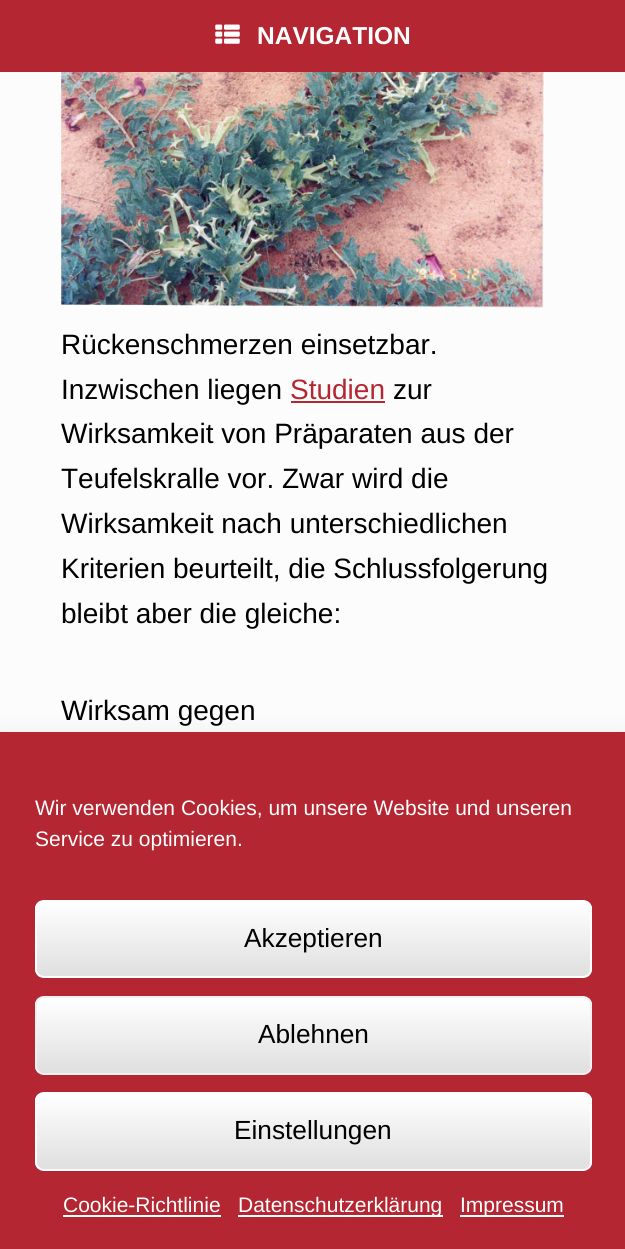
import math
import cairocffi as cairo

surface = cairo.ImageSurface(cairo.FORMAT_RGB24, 625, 1249)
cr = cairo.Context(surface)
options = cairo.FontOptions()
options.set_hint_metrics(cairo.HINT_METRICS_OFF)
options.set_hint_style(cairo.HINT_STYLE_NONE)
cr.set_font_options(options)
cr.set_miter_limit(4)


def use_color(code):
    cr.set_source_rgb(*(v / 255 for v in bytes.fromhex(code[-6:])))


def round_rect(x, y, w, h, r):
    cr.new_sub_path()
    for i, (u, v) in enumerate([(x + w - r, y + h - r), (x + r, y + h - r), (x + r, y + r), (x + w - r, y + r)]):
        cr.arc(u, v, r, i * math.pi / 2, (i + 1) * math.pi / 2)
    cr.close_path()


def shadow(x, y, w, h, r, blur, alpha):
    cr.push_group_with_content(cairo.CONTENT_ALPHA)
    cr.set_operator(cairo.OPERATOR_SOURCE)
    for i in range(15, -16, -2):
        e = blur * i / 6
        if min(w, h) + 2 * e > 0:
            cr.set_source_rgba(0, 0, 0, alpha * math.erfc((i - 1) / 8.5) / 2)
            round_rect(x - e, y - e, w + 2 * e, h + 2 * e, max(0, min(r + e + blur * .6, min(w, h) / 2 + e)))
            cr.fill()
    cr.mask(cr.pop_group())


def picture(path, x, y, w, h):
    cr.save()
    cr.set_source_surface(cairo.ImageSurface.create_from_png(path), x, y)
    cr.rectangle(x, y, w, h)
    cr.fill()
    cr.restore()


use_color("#fcfcfc")
cr.paint()
use_color("#b42631")
cr.rectangle(0, 0, 625, 72)
cr.fill()
picture("img1.png", 215, 24, 25, 20)
cr.select_font_face("Liberation Sans", cairo.FONT_SLANT_NORMAL, cairo.FONT_WEIGHT_BOLD)
cr.set_font_size(24.5)
use_color("#ffffff")
cr.move_to(257, 44)
cr.show_text("NAVIGATION")
picture("img2.png", 61, 72, 483, 237)
cr.select_font_face("Liberation Sans")
cr.set_font_size(28)
use_color("#000000")
cr.move_to(61, 354)
cr.show_text("Rückenschmerzen einsetzbar.")
cr.move_to(61, 399)
cr.show_text("Inzwischen liegen")
use_color("#b42631")
cr.move_to(290, 399)
cr.show_text("Studien")
cr.rectangle(291, 401, 94, 2)
cr.fill()
use_color("#000000")
cr.move_to(393, 399)
cr.show_text("zur")
cr.move_to(61, 443)
cr.show_text("Wirksamkeit von Präparaten aus der")
cr.move_to(61, 488)
cr.show_text("Teufelskralle vor. Zwar wird die")
cr.move_to(61, 533)
cr.show_text("Wirksamkeit nach unterschiedlichen")
cr.move_to(61, 578)
cr.show_text("Kriterien beurteilt, die Schlussfolgerung")
cr.move_to(61, 623)
cr.show_text("bleibt aber die gleiche:")
cr.move_to(61, 720)
cr.show_text("Wirksam gegen")
use_color("#000000")
shadow(0, 749, 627, 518, 0, 17.5, 0.19)
use_color("#b42631")
cr.rectangle(0, 732, 625, 517)
cr.fill()
cr.set_font_size(21)
use_color("#ffffff")
cr.move_to(35, 815)
cr.show_text("Wir verwenden Cookies, um unsere Website und unseren")
cr.move_to(35, 846)
cr.show_text("Service zu optimieren.")
cr.save()
round_rect(35, 900, 557, 78, 9)
cr.clip()
gradient = cairo.LinearGradient(37, 977, 37, 901)
gradient.add_color_stop_rgba(0, 0.875, 0.875, 0.875, 1)
gradient.add_color_stop_rgba(1, 1, 1, 1, 1)
cr.set_source(gradient)
cr.rectangle(35, 901, 557, 76)
cr.fill()
cr.restore()
round_rect(36, 901, 555, 76, 8)
cr.stroke()
cr.set_font_size(26.25)
use_color("#000000")
cr.move_to(244, 947)
cr.show_text("Akzeptieren")
cr.save()
round_rect(35, 996, 557, 79, 9)
cr.clip()
gradient = cairo.LinearGradient(37, 1073, 37, 998)
gradient.add_color_stop_rgba(0, 0.875, 0.875, 0.875, 1)
gradient.add_color_stop_rgba(1, 1, 1, 1, 1)
cr.set_source(gradient)
cr.rectangle(35, 998, 557, 75)
cr.fill()
cr.restore()
round_rect(36, 997, 555, 77, 8)
use_color("#f1f1f1")
cr.stroke()
use_color("#000000")
cr.move_to(258, 1043)
cr.show_text("Ablehnen")
cr.save()
round_rect(35, 1092, 557, 79, 9)
cr.clip()
gradient = cairo.LinearGradient(37, 1169, 37, 1094)
gradient.add_color_stop_rgba(0, 0.875, 0.875, 0.875, 1)
gradient.add_color_stop_rgba(1, 1, 1, 1, 1)
cr.set_source(gradient)
cr.rectangle(35, 1094, 557, 75)
cr.fill()
cr.restore()
round_rect(36, 1093, 555, 77, 8)
use_color("#ffffff")
cr.stroke()
use_color("#000000")
cr.move_to(234, 1139)
cr.show_text("Einstellungen")
cr.set_font_size(21)
use_color("#ffffff")
cr.move_to(63, 1212)
cr.show_text("Cookie-Richtlinie")
cr.rectangle(63, 1215, 158, 2)
cr.fill()
cr.rectangle(238, 1215, 205, 2)
cr.fill()
cr.move_to(238, 1212)
cr.show_text("Datenschutzerklärung")
cr.rectangle(460, 1215, 104, 2)
cr.fill()
cr.move_to(460, 1212)
cr.show_text("Impressum")
surface.write_to_png("result.png")
